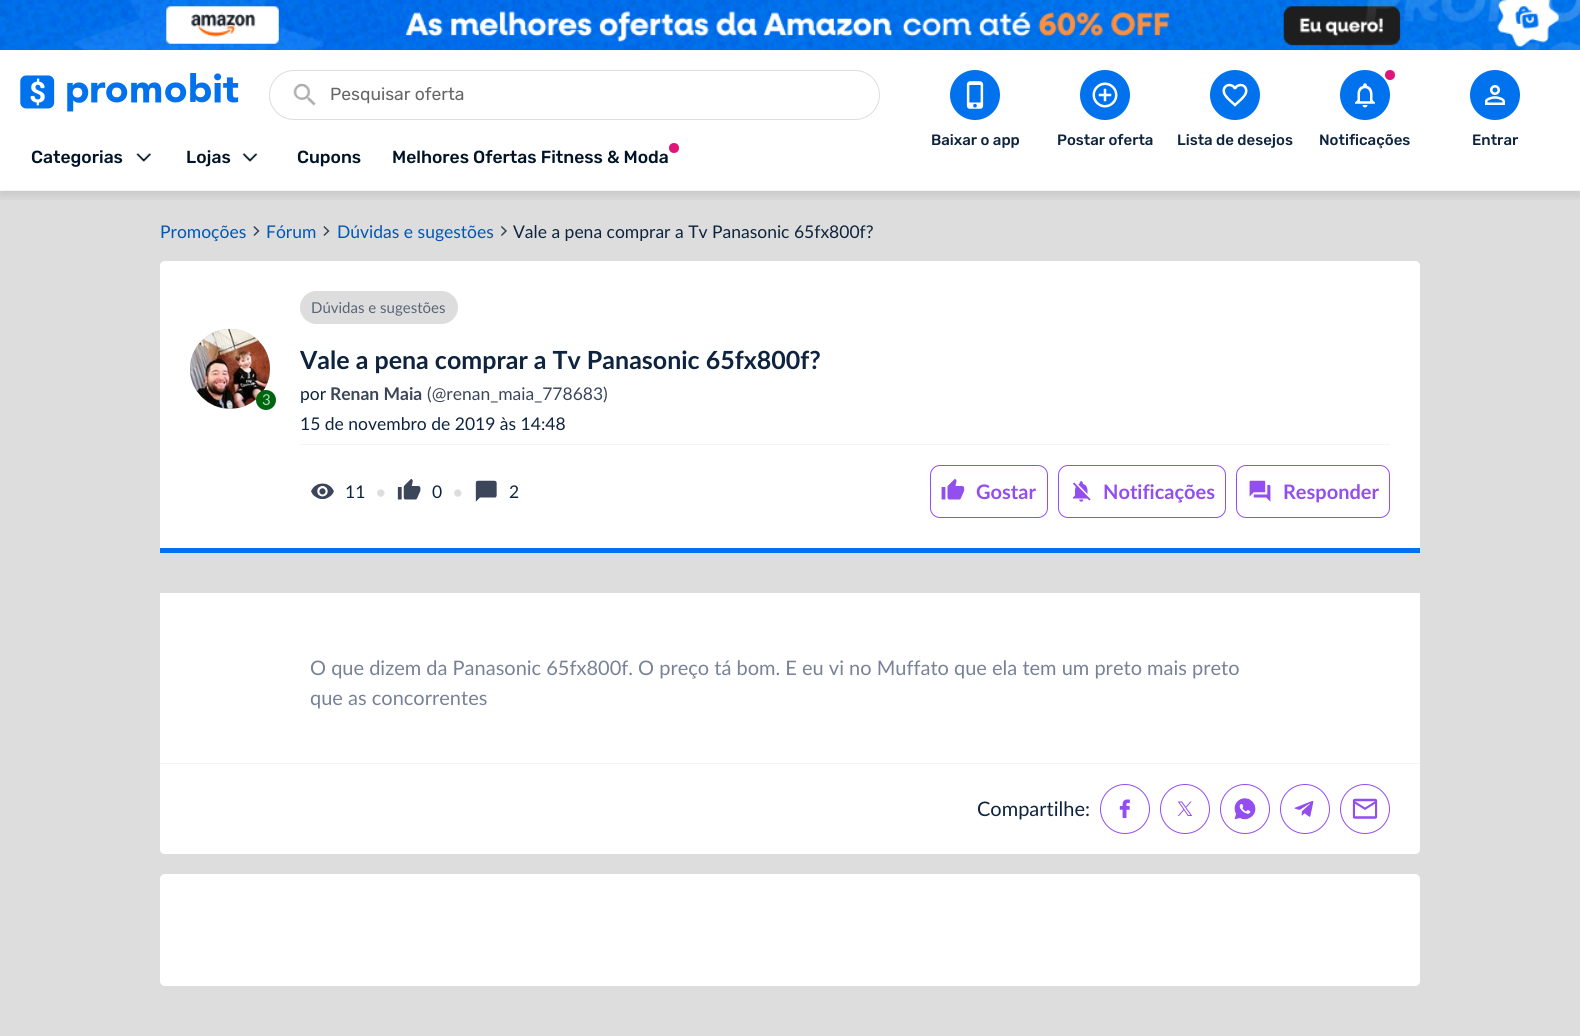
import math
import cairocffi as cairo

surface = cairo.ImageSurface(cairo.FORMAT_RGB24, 1580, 1036)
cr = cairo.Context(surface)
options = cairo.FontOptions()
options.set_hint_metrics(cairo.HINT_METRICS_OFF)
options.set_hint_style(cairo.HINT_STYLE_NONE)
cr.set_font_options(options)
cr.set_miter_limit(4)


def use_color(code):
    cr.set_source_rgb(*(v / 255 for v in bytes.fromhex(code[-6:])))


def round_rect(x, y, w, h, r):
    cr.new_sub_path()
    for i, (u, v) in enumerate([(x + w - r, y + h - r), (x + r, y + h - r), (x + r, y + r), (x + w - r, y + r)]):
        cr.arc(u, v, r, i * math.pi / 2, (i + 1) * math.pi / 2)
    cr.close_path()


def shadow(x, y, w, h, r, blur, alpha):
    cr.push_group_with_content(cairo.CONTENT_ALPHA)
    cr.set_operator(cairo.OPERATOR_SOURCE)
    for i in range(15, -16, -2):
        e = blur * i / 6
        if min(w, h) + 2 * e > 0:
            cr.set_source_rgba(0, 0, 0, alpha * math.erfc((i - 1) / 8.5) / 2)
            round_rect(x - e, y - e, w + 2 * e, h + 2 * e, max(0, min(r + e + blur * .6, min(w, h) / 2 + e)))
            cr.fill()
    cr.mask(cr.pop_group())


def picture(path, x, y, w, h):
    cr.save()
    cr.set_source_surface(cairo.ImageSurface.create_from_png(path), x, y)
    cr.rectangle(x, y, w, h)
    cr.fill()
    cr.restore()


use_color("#dddddd")
cr.paint()
picture("img1.png", 0, 0, 1580, 50)
use_color("#ffffff")
cr.rectangle(0, 50, 1580, 140)
cr.fill()
cr.save()
cr.rectangle(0, 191, 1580, 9)
cr.clip()
use_color("#000000")
shadow(0, 55, 1580, 141, 0, 5, 0.1)
cr.restore()
use_color("#f4f4f4")
cr.rectangle(0, 190, 1580, 1)
cr.fill()
picture("img2.png", 20, 73, 219, 39)
round_rect(269.5, 70.5, 610, 49, 24.5)
use_color("#dddddd")
cr.set_line_width(1)
cr.stroke()
picture("img3.png", 293, 83, 23, 23)
cr.select_font_face("Rubik")
cr.set_font_size(17.5)
use_color("#666666")
cr.move_to(330, 100)
cr.show_text("Pesquisar oferta")
cr.select_font_face("Rubik Medium")
use_color("#011327")
cr.move_to(31, 163)
cr.show_text("Categorias")
picture("img4.png", 136, 153, 15, 9)
cr.move_to(186, 163)
cr.show_text("Lojas")
picture("img5.png", 242, 153, 16, 9)
cr.move_to(297, 163)
cr.show_text("Cupons")
use_color("#e0157a")
cr.new_path()
cr.arc(674, 148, 5, 0, 2 * math.pi)
cr.fill()
use_color("#011327")
cr.move_to(392, 163)
cr.show_text("Melhores Ofertas Fitness & Moda")
use_color("#0072ed")
cr.new_path()
cr.arc(975, 95, 25, 0, 2 * math.pi)
cr.fill()
picture("img6.png", 966, 81, 18, 28)
cr.set_font_size(15)
use_color("#0e243e")
cr.move_to(931, 145)
cr.show_text("Baixar o app")
use_color("#0072ed")
cr.new_path()
cr.arc(1105, 95, 25, 0, 2 * math.pi)
cr.fill()
picture("img7.png", 1092, 82, 26, 26)
use_color("#0e243e")
cr.move_to(1057, 145)
cr.show_text("Postar oferta")
use_color("#0072ed")
cr.new_path()
cr.arc(1235, 95, 25, 0, 2 * math.pi)
cr.fill()
picture("img8.png", 1222, 83, 26, 24)
use_color("#0e243e")
cr.move_to(1177, 145)
cr.show_text("Lista de desejos")
use_color("#0072ed")
cr.new_path()
cr.arc(1365, 95, 25, 0, 2 * math.pi)
cr.fill()
picture("img9.png", 1355, 83, 20, 25)
use_color("#e0157a")
cr.arc(1390, 75, 5, 0, 2 * math.pi)
cr.fill()
use_color("#0e243e")
cr.move_to(1319, 145)
cr.show_text("Notificações")
use_color("#0072ed")
cr.new_path()
cr.arc(1495, 95, 25, 0, 2 * math.pi)
cr.fill()
picture("img10.png", 1485, 85, 20, 20)
use_color("#0e243e")
cr.move_to(1472, 145)
cr.show_text("Entrar")
cr.select_font_face("Lato")
cr.set_font_size(17.5)
use_color("#0057b4")
cr.move_to(160, 238)
cr.show_text("Promoções")
picture("img11.png", 253, 226, 7, 10)
cr.move_to(266, 238)
cr.show_text("Fórum")
picture("img12.png", 323, 226, 7, 10)
cr.move_to(337, 238)
cr.show_text("Dúvidas e sugestões")
picture("img13.png", 501, 226, 6, 10)
use_color("#0e243e")
cr.move_to(513, 238)
cr.show_text("Vale a pena comprar a Tv Panasonic 65fx800f?")
use_color("#ffffff")
cr.new_path()
cr.move_to(165, 261)
cr.line_to(1415, 261)
cr.curve_to(1418, 261, 1420, 263, 1420, 266)
cr.line_to(1420, 548)
cr.line_to(160, 548)
cr.line_to(160, 266)
cr.curve_to(160, 263, 162, 261, 165, 261)
cr.close_path()
cr.fill()
use_color("#0072ed")
cr.rectangle(160, 548, 1260, 5)
cr.fill()
cr.arc(230, 369, 39.5, 0, 2 * math.pi)
use_color("#adadad")
cr.stroke()
picture("img14.png", 190, 328, 80, 81)
use_color("#006511")
cr.arc(266, 400, 10, 0, 2 * math.pi)
cr.fill()
cr.set_font_size(15)
use_color("#ace1b3")
cr.move_to(262, 405)
cr.show_text("3")
use_color("#f4f4f4")
cr.rectangle(300, 444, 1090, 1)
cr.fill()
use_color("#dddddd")
round_rect(300.5, 291.5, 157, 32, 16)
cr.fill_preserve()
cr.stroke()
use_color("#5a6478")
cr.move_to(311, 313)
cr.show_text("Dúvidas e sugestões")
cr.select_font_face("Lato", cairo.FONT_SLANT_NORMAL, cairo.FONT_WEIGHT_BOLD)
cr.set_font_size(25)
use_color("#0e243e")
cr.move_to(300, 369)
cr.show_text("Vale a pena comprar a Tv Panasonic 65fx800f?")
cr.select_font_face("Lato")
cr.set_font_size(17.5)
cr.move_to(300, 400)
cr.show_text("por")
cr.select_font_face("Lato", cairo.FONT_SLANT_NORMAL, cairo.FONT_WEIGHT_BOLD)
use_color("#3c465a")
cr.move_to(330, 400)
cr.show_text("Renan Maia")
cr.select_font_face("Lato")
cr.move_to(427, 400)
cr.show_text("(@renan_maia_778683)")
use_color("#0e243e")
cr.move_to(300, 430)
cr.show_text("15 de novembro de 2019 às 14:48")
picture("img15.png", 311, 483, 23, 16)
cr.move_to(345, 498)
cr.show_text("11")
cr.set_font_size(20)
use_color("#dddddd")
cr.move_to(375, 499)
cr.show_text("•")
picture("img16.png", 397, 479, 24, 21)
cr.set_font_size(17.5)
use_color("#0e243e")
cr.move_to(432, 498)
cr.show_text("0")
cr.set_font_size(20)
use_color("#dddddd")
cr.move_to(452, 499)
cr.show_text("•")
picture("img17.png", 475, 480, 22, 22)
cr.set_font_size(17.5)
use_color("#0e243e")
cr.move_to(509, 498)
cr.show_text("2")
round_rect(930.5, 465.5, 117, 52, 9.5)
use_color("#934eef")
cr.stroke()
picture("img18.png", 941, 479, 24, 21)
cr.select_font_face("Lato", cairo.FONT_SLANT_NORMAL, cairo.FONT_WEIGHT_BOLD)
cr.set_font_size(20)
cr.move_to(976, 499)
cr.show_text("Gostar")
round_rect(1058.5, 465.5, 167, 52, 9.5)
cr.stroke()
picture("img19.png", 1072, 481, 19, 21)
cr.move_to(1103, 499)
cr.show_text("Notificações")
round_rect(1236.5, 465.5, 153, 52, 9.5)
cr.stroke()
picture("img20.png", 1249, 480, 22, 22)
cr.move_to(1283, 499)
cr.show_text("Responder")
use_color("#ffffff")
cr.new_path()
cr.move_to(160, 593)
cr.line_to(1420, 593)
cr.line_to(1420, 849)
cr.curve_to(1420, 852, 1418, 854, 1415, 854)
cr.line_to(165, 854)
cr.curve_to(162, 854, 160, 852, 160, 849)
cr.close_path()
cr.fill()
cr.select_font_face("Lato")
use_color("#788296")
cr.move_to(310, 675)
cr.show_text("O que dizem da Panasonic 65fx800f. O preço tá bom. E eu vi no Muffato que ela tem um preto mais preto")
cr.move_to(310, 705)
cr.show_text("que as concorrentes")
use_color("#f4f4f4")
cr.rectangle(160, 763, 1260, 1)
cr.fill()
use_color("#0e243e")
cr.move_to(977, 816)
cr.show_text("Compartilhe:")
cr.new_path()
cr.arc(1125, 809, 24.5, 0, 2 * math.pi)
use_color("#934eef")
cr.stroke()
picture("img21.png", 1119, 799, 11, 19)
cr.arc(1185, 809, 24.5, 0, 2 * math.pi)
cr.stroke()
picture("img22.png", 1177, 801, 16, 15)
cr.arc(1245, 809, 24.5, 0, 2 * math.pi)
cr.stroke()
picture("img23.png", 1234, 798, 22, 22)
cr.arc(1305, 809, 24.5, 0, 2 * math.pi)
cr.stroke()
picture("img24.png", 1294, 801, 20, 16)
cr.arc(1365, 809, 24.5, 0, 2 * math.pi)
cr.stroke()
picture("img25.png", 1352, 798, 26, 21)
use_color("#ffffff")
round_rect(160, 874, 1260, 112, 5)
cr.fill()
surface.write_to_png("result.png")
